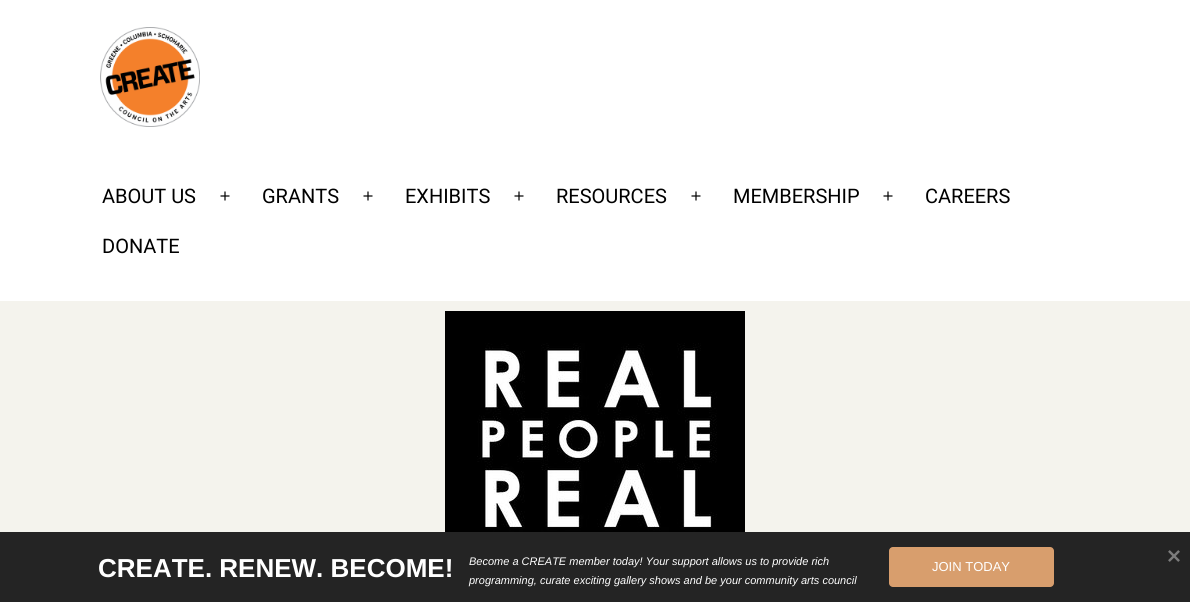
import math
import cairocffi as cairo

surface = cairo.ImageSurface(cairo.FORMAT_RGB24, 1190, 602)
cr = cairo.Context(surface)
options = cairo.FontOptions()
options.set_hint_metrics(cairo.HINT_METRICS_OFF)
options.set_hint_style(cairo.HINT_STYLE_NONE)
cr.set_font_options(options)
cr.set_miter_limit(4)


def use_color(code):
    cr.set_source_rgb(*(v / 255 for v in bytes.fromhex(code[-6:])))


def round_rect(x, y, w, h, r):
    cr.new_sub_path()
    for i, (u, v) in enumerate([(x + w - r, y + h - r), (x + r, y + h - r), (x + r, y + r), (x + w - r, y + r)]):
        cr.arc(u, v, r, i * math.pi / 2, (i + 1) * math.pi / 2)
    cr.close_path()


def picture(path, x, y, w, h):
    cr.save()
    cr.set_source_surface(cairo.ImageSurface.create_from_png(path), x, y)
    cr.rectangle(x, y, w, h)
    cr.fill()
    cr.restore()


use_color("#f4f3ed")
cr.paint()
use_color("#ffffff")
cr.rectangle(0, 0, 1190, 301)
cr.fill()
picture("img1.png", 100, 27, 100, 100)
cr.select_font_face("Roboto")
cr.set_font_size(20)
use_color("#000000")
cr.move_to(102, 203)
cr.show_text("ABOUT US")
picture("img2.png", 220, 191, 10, 10)
cr.move_to(262, 203)
cr.show_text("GRANTS")
picture("img2.png", 363, 191, 10, 10)
cr.move_to(405, 203)
cr.show_text("EXHIBITS")
picture("img2.png", 514, 191, 10, 10)
cr.move_to(556, 203)
cr.show_text("RESOURCES")
picture("img2.png", 691, 191, 10, 10)
cr.move_to(733, 203)
cr.show_text("MEMBERSHIP")
picture("img2.png", 883, 191, 10, 10)
cr.move_to(925, 203)
cr.show_text("CAREERS")
cr.move_to(102, 253)
cr.show_text("DONATE")
picture("img3.png", 445, 311, 300, 221)
use_color("#242424")
cr.rectangle(0, 532, 1190, 70)
cr.fill()
cr.select_font_face("Liberation Sans", cairo.FONT_SLANT_NORMAL, cairo.FONT_WEIGHT_BOLD)
cr.set_font_size(26)
use_color("#ffffff")
cr.move_to(98, 577)
cr.show_text("CREATE. RENEW. BECOME!")
cr.select_font_face("Liberation Sans", cairo.FONT_SLANT_ITALIC)
cr.set_font_size(11)
cr.move_to(469, 565)
cr.show_text("Become a CREATE member today! Your support allows us to provide rich")
cr.move_to(469, 584)
cr.show_text("programming, curate exciting gallery shows and be your community arts council")
use_color("#d89e6d")
round_rect(889, 547, 165, 40, 4)
cr.fill()
cr.select_font_face("Liberation Sans")
cr.set_font_size(13)
use_color("#ffffff")
cr.move_to(932, 571)
cr.show_text("JOIN TODAY")
picture("img4.png", 1168, 550, 12, 12)
surface.write_to_png("result.png")
